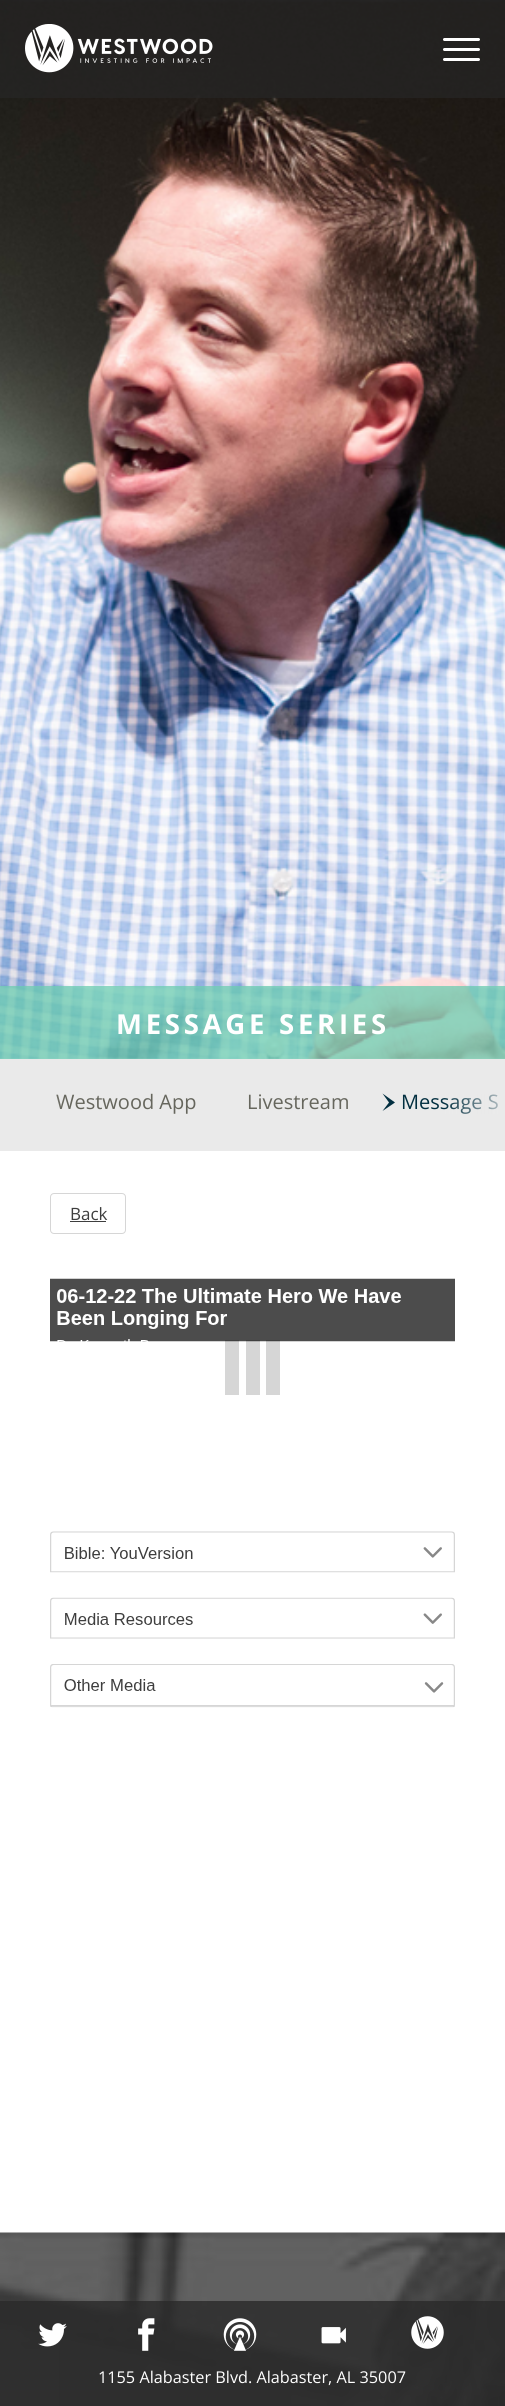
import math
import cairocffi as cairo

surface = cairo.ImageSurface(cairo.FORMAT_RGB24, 505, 2406)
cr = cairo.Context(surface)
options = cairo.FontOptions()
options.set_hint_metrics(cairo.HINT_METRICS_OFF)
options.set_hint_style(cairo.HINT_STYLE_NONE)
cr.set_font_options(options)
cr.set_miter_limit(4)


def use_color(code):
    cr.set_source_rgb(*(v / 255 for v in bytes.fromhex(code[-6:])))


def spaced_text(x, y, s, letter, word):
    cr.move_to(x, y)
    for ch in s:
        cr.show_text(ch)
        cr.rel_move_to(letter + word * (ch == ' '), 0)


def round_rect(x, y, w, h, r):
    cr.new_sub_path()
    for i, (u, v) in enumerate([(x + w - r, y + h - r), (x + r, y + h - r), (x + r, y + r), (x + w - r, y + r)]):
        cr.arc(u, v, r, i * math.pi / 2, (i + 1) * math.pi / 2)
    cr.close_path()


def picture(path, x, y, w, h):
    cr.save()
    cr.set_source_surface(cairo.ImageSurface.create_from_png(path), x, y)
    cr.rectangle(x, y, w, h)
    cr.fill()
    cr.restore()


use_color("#ffffff")
cr.paint()
picture("img2.png", 0, 0, 505, 1059)
cr.set_source_rgba(0.149, 0.149, 0.149, 0.66)
cr.rectangle(0, 0, 505, 98)
cr.fill()
picture("img1.png", 25, 24, 188, 49)
use_color("#ffffff")
round_rect(443, 48, 37, 3, 1.5)
cr.fill()
round_rect(443, 38, 37, 3, 1.5)
cr.fill()
round_rect(443, 58, 37, 3, 1.5)
cr.fill()
cr.set_source_rgba(0.431, 0.804, 0.698, 0.76)
cr.rectangle(0, 986, 505, 73)
cr.fill()
cr.select_font_face("Open Sans", cairo.FONT_SLANT_NORMAL, cairo.FONT_WEIGHT_BOLD)
cr.set_font_size(27.5)
use_color("#ffffff")
spaced_text(116, 1034, "MESSAGE SERIES", 3.75, 0)
picture("img9.png", 0, 2232, 505, 174)
cr.set_source_rgba(0.165, 0.165, 0.165, 0.8)
cr.rectangle(0, 2301, 505, 105)
cr.fill()
picture("img3.png", 38, 2323, 29, 24)
picture("img4.png", 138, 2318, 17, 33)
picture("img5.png", 223, 2318, 34, 33)
picture("img6.png", 321, 2327, 25, 17)
picture("img7.png", 411, 2316, 33, 33)
cr.select_font_face("Open Sans")
cr.set_font_size(16.25)
use_color("#ffffff")
cr.move_to(98, 2383)
cr.show_text("1155 Alabaster Blvd. Alabaster, AL 35007")
use_color("#eaeaea")
cr.rectangle(0, 1059, 505, 92)
cr.fill()
cr.set_font_size(20)
use_color("#66665d")
cr.move_to(56, 1109)
cr.show_text("Westwood App")
cr.move_to(247, 1109)
cr.show_text("Livestream")
use_color("#022f40")
cr.new_path()
cr.move_to(395, 1102.5)
cr.line_to(382.5, 1093.5)
cr.line_to(389, 1102.5)
cr.line_to(382.5, 1111)
cr.close_path()
cr.fill()
cr.move_to(401, 1109)
cr.show_text("Message S")
gradient = cairo.LinearGradient(0, 1105, 63, 1105)
gradient.add_color_stop_rgba(0, 0.918, 0.918, 0.918, 0.8)
gradient.add_color_stop_rgba(1, 0.918, 0.918, 0.918, 0)
cr.set_source(gradient)
cr.rectangle(56, 1095, 5, 14)
cr.fill()
gradient = cairo.LinearGradient(443, 1105, 505, 1105)
gradient.add_color_stop_rgba(0, 0.918, 0.918, 0.918, 0)
gradient.add_color_stop_rgba(1, 0.918, 0.918, 0.918, 0.8)
cr.set_source(gradient)
cr.rectangle(445, 1094, 53, 20)
cr.fill()
round_rect(50.5, 1193.5, 75, 40, 3.5)
use_color("#d6d6d6")
cr.set_line_width(1)
cr.stroke()
cr.set_font_size(17)
use_color("#3e3e3e")
cr.move_to(70, 1220)
cr.show_text("Back")
cr.rectangle(70, 1221, 36, 1)
cr.fill()
use_color("#d6d6d6")
cr.rectangle(246, 1340, 14, 55)
cr.fill()
cr.rectangle(225, 1340, 14, 55)
cr.fill()
cr.rectangle(266, 1340, 14, 55)
cr.fill()
picture("img8.png", 50, 1278, 405, 430)
surface.write_to_png("result.png")
